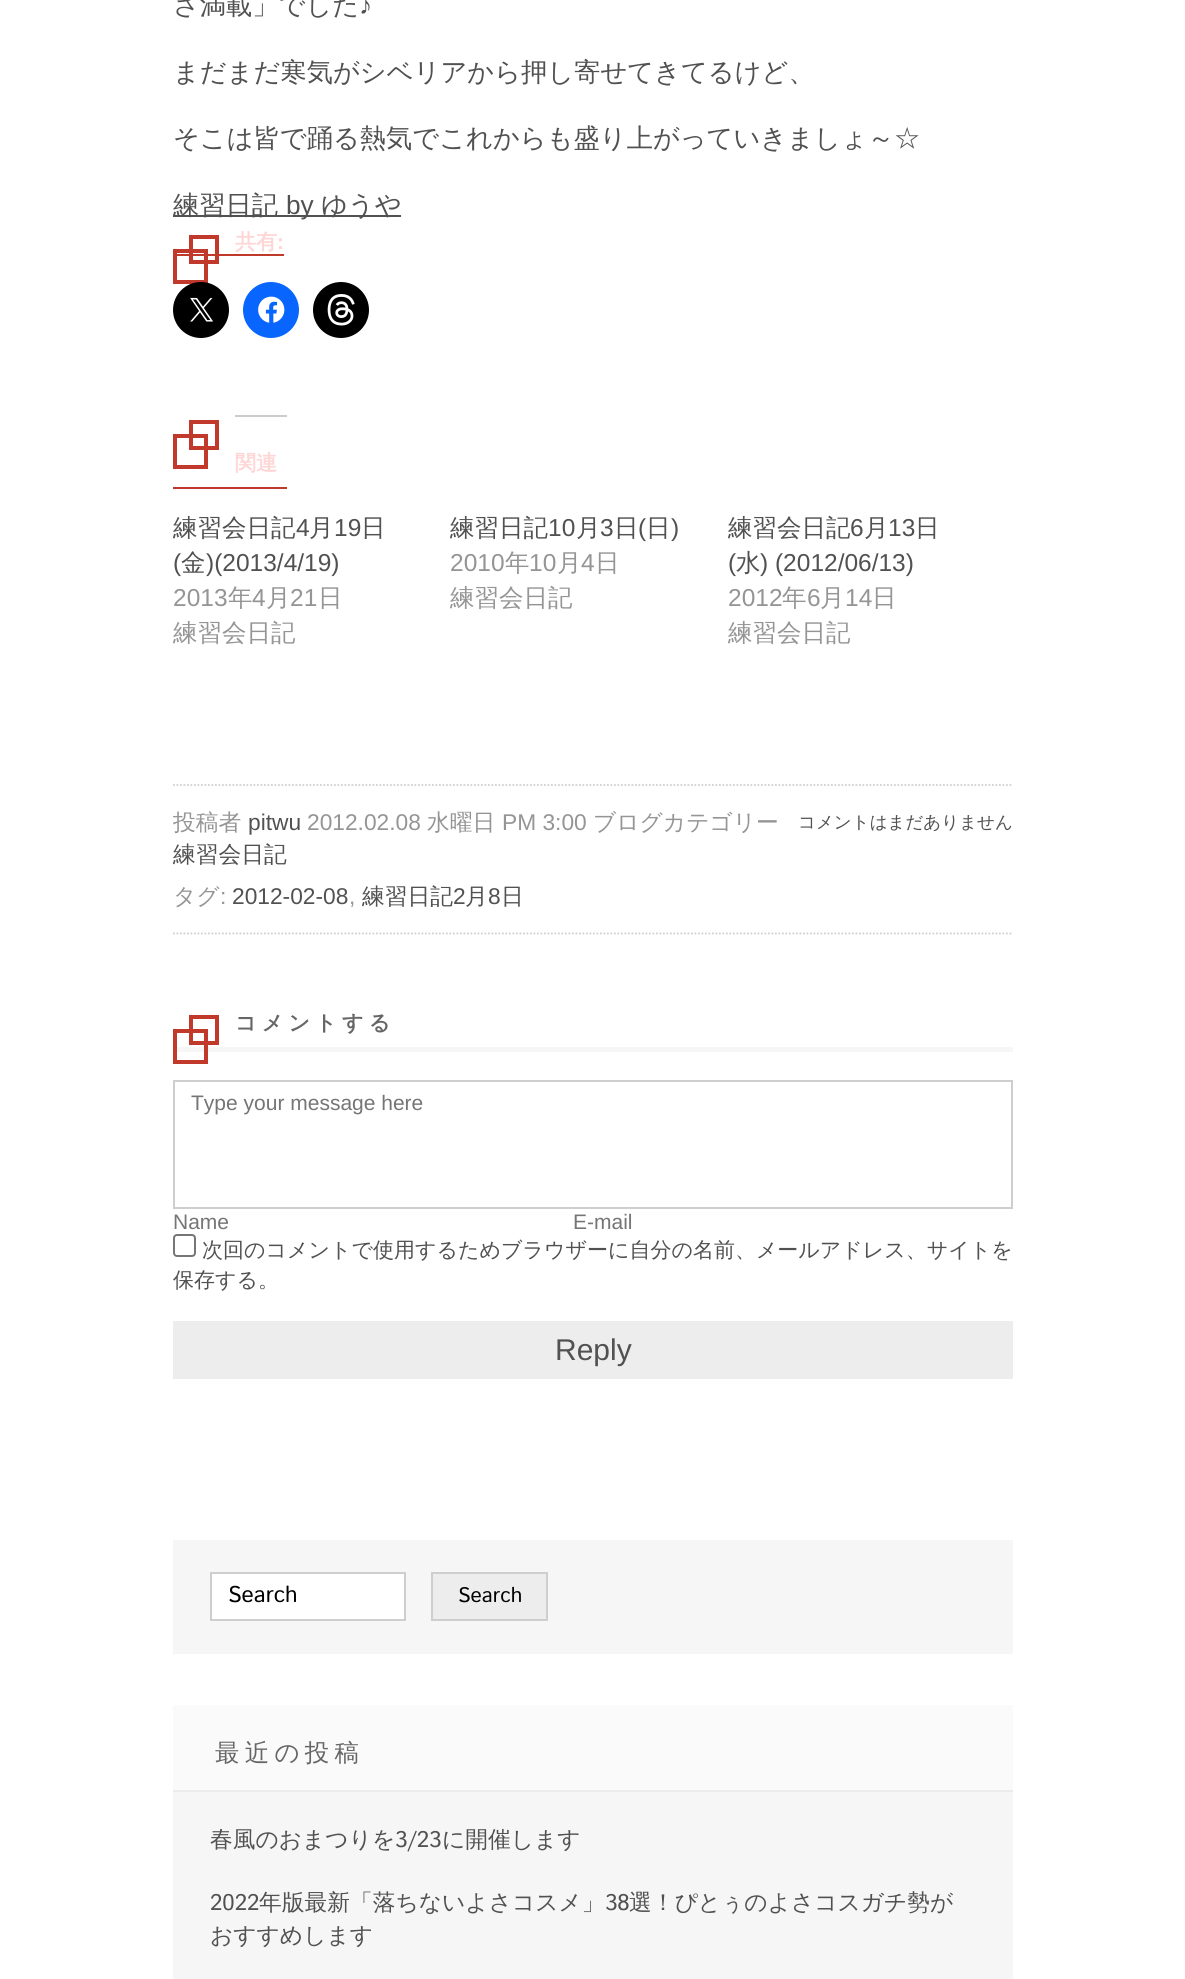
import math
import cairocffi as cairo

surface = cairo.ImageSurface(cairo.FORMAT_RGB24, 1185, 1979)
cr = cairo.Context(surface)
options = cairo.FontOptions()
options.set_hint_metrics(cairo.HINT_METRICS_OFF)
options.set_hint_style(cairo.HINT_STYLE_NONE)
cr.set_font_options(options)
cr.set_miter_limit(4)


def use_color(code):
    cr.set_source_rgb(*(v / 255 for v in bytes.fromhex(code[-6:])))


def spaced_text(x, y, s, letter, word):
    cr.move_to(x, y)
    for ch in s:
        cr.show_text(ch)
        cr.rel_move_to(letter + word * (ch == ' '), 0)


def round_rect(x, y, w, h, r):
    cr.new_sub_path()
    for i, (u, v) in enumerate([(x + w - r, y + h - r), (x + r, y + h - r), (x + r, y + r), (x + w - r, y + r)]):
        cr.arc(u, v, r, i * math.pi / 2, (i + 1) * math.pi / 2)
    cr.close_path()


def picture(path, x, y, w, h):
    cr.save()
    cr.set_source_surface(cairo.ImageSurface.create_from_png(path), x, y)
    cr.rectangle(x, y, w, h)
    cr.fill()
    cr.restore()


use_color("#ffffff")
cr.paint()
cr.select_font_face("WenQuanYi Zen Hei Medium")
cr.set_font_size(26.25)
use_color("#515151")
cr.move_to(173, 14)
cr.show_text("さ満載」でした")
cr.select_font_face("Liberation Sans")
cr.move_to(359, 14)
cr.show_text("♪")
cr.select_font_face("WenQuanYi Zen Hei Medium")
cr.move_to(173, 81)
cr.show_text("まだまだ寒気がシベリアから押し寄せてきてるけど、")
cr.move_to(173, 147)
cr.show_text("そこは皆で踊る熱気でこれからも盛り上がっていきましょ～☆")
cr.rectangle(173, 215, 228, 2)
cr.fill()
cr.move_to(173, 214)
cr.show_text("練習日記")
cr.select_font_face("Liberation Sans")
cr.move_to(286, 214)
cr.show_text("by")
cr.select_font_face("WenQuanYi Zen Hei Medium")
cr.move_to(321, 214)
cr.show_text("ゆうや")
use_color("#c0392b")
cr.rectangle(173, 254, 111, 2)
cr.fill()
cr.rectangle(175, 251, 31, 31)
cr.set_line_width(4)
cr.stroke()
cr.rectangle(191, 237, 26, 25)
cr.stroke()
cr.select_font_face("WenQuanYi Zen Hei", cairo.FONT_SLANT_NORMAL, cairo.FONT_WEIGHT_BOLD)
cr.set_font_size(21)
use_color("#ffd6d6")
cr.move_to(235, 249)
cr.show_text("共有")
cr.select_font_face("Liberation Sans", cairo.FONT_SLANT_NORMAL, cairo.FONT_WEIGHT_BOLD)
cr.move_to(277, 249)
cr.show_text(":")
use_color("#000000")
cr.new_path()
cr.arc(201, 310, 28, 0, 2 * math.pi)
cr.fill()
picture("img1.png", 190, 297, 23, 25)
use_color("#0866ff")
cr.arc(271, 310, 28, 0, 2 * math.pi)
cr.fill()
picture("img2.png", 258, 296, 27, 27)
use_color("#000000")
cr.arc(341, 310, 28, 0, 2 * math.pi)
cr.fill()
picture("img3.png", 327, 294, 28, 32)
use_color("#c0392b")
cr.rectangle(173, 487, 114, 2)
cr.fill()
cr.rectangle(175, 436, 31, 31)
cr.stroke()
cr.rectangle(191, 422, 26, 26)
cr.stroke()
use_color("#cccccc")
cr.rectangle(235, 415, 52, 2)
cr.fill()
cr.select_font_face("WenQuanYi Zen Hei", cairo.FONT_SLANT_NORMAL, cairo.FONT_WEIGHT_BOLD)
use_color("#ffd6d6")
cr.move_to(235, 470)
cr.show_text("関連")
cr.select_font_face("WenQuanYi Zen Hei Medium")
cr.set_font_size(24.5)
use_color("#515151")
cr.move_to(173, 536)
cr.show_text("練習会日記")
cr.select_font_face("Liberation Sans")
cr.move_to(296, 536)
cr.show_text("4")
cr.select_font_face("WenQuanYi Zen Hei Medium")
cr.move_to(309, 536)
cr.show_text("月")
cr.select_font_face("Liberation Sans")
cr.move_to(334, 536)
cr.show_text("19")
cr.select_font_face("WenQuanYi Zen Hei Medium")
cr.move_to(361, 536)
cr.show_text("日")
cr.select_font_face("Liberation Sans")
cr.move_to(173, 571)
cr.show_text("(")
cr.select_font_face("WenQuanYi Zen Hei Medium")
cr.move_to(181, 571)
cr.show_text("金")
cr.select_font_face("Liberation Sans")
cr.move_to(206, 571)
cr.show_text(")(2013/4/19)")
use_color("#959595")
cr.move_to(173, 606)
cr.show_text("2013")
cr.select_font_face("WenQuanYi Zen Hei Medium")
cr.move_to(228, 606)
cr.show_text("年")
cr.select_font_face("Liberation Sans")
cr.move_to(252, 606)
cr.show_text("4")
cr.select_font_face("WenQuanYi Zen Hei Medium")
cr.move_to(266, 606)
cr.show_text("月")
cr.select_font_face("Liberation Sans")
cr.move_to(290, 606)
cr.show_text("21")
cr.select_font_face("WenQuanYi Zen Hei Medium")
cr.move_to(318, 606)
cr.show_text("日")
cr.move_to(173, 641)
cr.show_text("練習会日記")
use_color("#515151")
cr.move_to(450, 536)
cr.show_text("練習日記")
cr.select_font_face("Liberation Sans")
cr.move_to(548, 536)
cr.show_text("10")
cr.select_font_face("WenQuanYi Zen Hei Medium")
cr.move_to(576, 536)
cr.show_text("月")
cr.select_font_face("Liberation Sans")
cr.move_to(600, 536)
cr.show_text("3")
cr.select_font_face("WenQuanYi Zen Hei Medium")
cr.move_to(614, 536)
cr.show_text("日")
cr.select_font_face("Liberation Sans")
cr.move_to(638, 536)
cr.show_text("(")
cr.select_font_face("WenQuanYi Zen Hei Medium")
cr.move_to(646, 536)
cr.show_text("日")
cr.select_font_face("Liberation Sans")
cr.move_to(671, 536)
cr.show_text(")")
use_color("#959595")
cr.move_to(450, 571)
cr.show_text("2010")
cr.select_font_face("WenQuanYi Zen Hei Medium")
cr.move_to(505, 571)
cr.show_text("年")
cr.select_font_face("Liberation Sans")
cr.move_to(529, 571)
cr.show_text("10")
cr.select_font_face("WenQuanYi Zen Hei Medium")
cr.move_to(557, 571)
cr.show_text("月")
cr.select_font_face("Liberation Sans")
cr.move_to(581, 571)
cr.show_text("4")
cr.select_font_face("WenQuanYi Zen Hei Medium")
cr.move_to(595, 571)
cr.show_text("日")
cr.move_to(450, 606)
cr.show_text("練習会日記")
use_color("#515151")
cr.move_to(728, 536)
cr.show_text("練習会日記")
cr.select_font_face("Liberation Sans")
cr.move_to(850, 536)
cr.show_text("6")
cr.select_font_face("WenQuanYi Zen Hei Medium")
cr.move_to(864, 536)
cr.show_text("月")
cr.select_font_face("Liberation Sans")
cr.move_to(888, 536)
cr.show_text("13")
cr.select_font_face("WenQuanYi Zen Hei Medium")
cr.move_to(915, 536)
cr.show_text("日")
cr.select_font_face("Liberation Sans")
cr.move_to(728, 571)
cr.show_text("(")
cr.select_font_face("WenQuanYi Zen Hei Medium")
cr.move_to(736, 571)
cr.show_text("水")
cr.select_font_face("Liberation Sans")
cr.move_to(760, 571)
cr.show_text(") (2012/06/13)")
use_color("#959595")
cr.move_to(728, 606)
cr.show_text("2012")
cr.select_font_face("WenQuanYi Zen Hei Medium")
cr.move_to(782, 606)
cr.show_text("年")
cr.select_font_face("Liberation Sans")
cr.move_to(807, 606)
cr.show_text("6")
cr.select_font_face("WenQuanYi Zen Hei Medium")
cr.move_to(820, 606)
cr.show_text("月")
cr.select_font_face("Liberation Sans")
cr.move_to(845, 606)
cr.show_text("14")
cr.select_font_face("WenQuanYi Zen Hei Medium")
cr.move_to(872, 606)
cr.show_text("日")
cr.move_to(728, 641)
cr.show_text("練習会日記")
cr.new_path()
cr.move_to(173, 785)
cr.line_to(1013, 785)
use_color("#d0d0d0")
cr.set_line_width(1.8)
cr.set_dash([1.75, 1.75])
cr.stroke()
cr.new_path()
cr.move_to(173, 933.5)
cr.line_to(1013, 933.5)
cr.stroke()
cr.set_font_size(22.75)
use_color("#959595")
cr.move_to(173, 830)
cr.show_text("投稿者")
cr.select_font_face("Liberation Sans")
use_color("#515151")
cr.move_to(248, 830)
cr.show_text("pitwu")
use_color("#959595")
cr.move_to(307, 830)
cr.show_text("2012.02.08")
cr.select_font_face("WenQuanYi Zen Hei Medium")
cr.move_to(427, 830)
cr.show_text("水曜日")
cr.select_font_face("Liberation Sans")
cr.move_to(502, 830)
cr.show_text("PM 3:00")
cr.select_font_face("WenQuanYi Zen Hei Medium")
cr.move_to(593, 830)
cr.show_text("ブログカテゴリー")
use_color("#515151")
cr.move_to(173, 862)
cr.show_text("練習会日記")
cr.set_font_size(17.5)
cr.move_to(798, 828)
cr.show_text("コメントはまだありません")
cr.set_font_size(22.75)
use_color("#959595")
cr.move_to(173, 904)
cr.show_text("タグ")
cr.select_font_face("Liberation Sans")
cr.move_to(220, 904)
cr.show_text(":")
use_color("#515151")
cr.move_to(232, 904)
cr.show_text("2012-02-08")
use_color("#959595")
cr.move_to(349, 904)
cr.show_text(",")
cr.select_font_face("WenQuanYi Zen Hei Medium")
use_color("#515151")
cr.move_to(362, 904)
cr.show_text("練習日記")
cr.select_font_face("Liberation Sans")
cr.move_to(453, 904)
cr.show_text("2")
cr.select_font_face("WenQuanYi Zen Hei Medium")
cr.move_to(465, 904)
cr.show_text("月")
cr.select_font_face("Liberation Sans")
cr.move_to(488, 904)
cr.show_text("8")
cr.select_font_face("WenQuanYi Zen Hei Medium")
cr.move_to(501, 904)
cr.show_text("日")
use_color("#f6f6f6")
cr.rectangle(173, 1047, 840, 5)
cr.fill()
cr.rectangle(175, 1031, 31, 31)
use_color("#c0392b")
cr.set_line_width(4)
cr.set_dash([])
cr.stroke()
cr.rectangle(191, 1017, 26, 26)
cr.stroke()
cr.select_font_face("WenQuanYi Zen Hei", cairo.FONT_SLANT_NORMAL, cairo.FONT_WEIGHT_BOLD)
cr.set_font_size(21)
use_color("#666666")
spaced_text(235, 1030, "コメントする", 5.25, 0)
cr.rectangle(174, 1081, 838, 127)
use_color("#cecece")
cr.set_line_width(2)
cr.stroke()
cr.select_font_face("Liberation Sans")
use_color("#757575")
cr.move_to(191, 1110)
cr.show_text("Type your message here")
cr.move_to(173, 1229)
cr.show_text("Name")
cr.move_to(573, 1229)
cr.show_text("E-mail")
round_rect(174, 1235, 21, 21, 3)
use_color("#767676")
cr.stroke()
cr.select_font_face("WenQuanYi Zen Hei Medium")
use_color("#515151")
cr.move_to(202, 1257)
cr.show_text("次回のコメントで使用するためブラウザーに自分の名前、メールアドレス、サイトを")
cr.move_to(173, 1287)
cr.show_text("保存する。")
use_color("#ededed")
cr.rectangle(173, 1321, 840, 58)
cr.fill()
cr.select_font_face("Liberation Sans")
cr.set_font_size(30)
use_color("#515151")
cr.move_to(555, 1360)
cr.show_text("Reply")
use_color("#f6f6f6")
cr.rectangle(173, 1540, 840, 114)
cr.fill()
use_color("#ffffff")
cr.rectangle(211, 1573, 194, 47)
cr.fill_preserve()
use_color("#cecece")
cr.stroke()
cr.select_font_face("Istok Web")
cr.set_font_size(22.75)
use_color("#000000")
cr.move_to(228, 1602)
cr.show_text("Search")
use_color("#ededed")
cr.rectangle(432, 1573, 115, 47)
cr.fill_preserve()
use_color("#cecece")
cr.stroke()
cr.set_font_size(21)
use_color("#000000")
cr.move_to(458, 1602)
cr.show_text("Search")
use_color("#fafafa")
cr.rectangle(173, 1705, 840, 85)
cr.fill()
use_color("#ececec")
cr.rectangle(173, 1790, 840, 2)
cr.fill()
cr.select_font_face("WenQuanYi Zen Hei Medium")
cr.set_font_size(24.5)
use_color("#666666")
spaced_text(215, 1761, "最近の投稿", 5.25, 0)
use_color("#f6f6f6")
cr.rectangle(173, 1792, 840, 187)
cr.fill()
cr.set_font_size(22.75)
use_color("#515151")
cr.move_to(210, 1847)
cr.show_text("春風のおまつりを")
cr.select_font_face("Istok Web")
cr.move_to(395, 1847)
cr.show_text("3/23")
cr.select_font_face("WenQuanYi Zen Hei Medium")
cr.move_to(442, 1847)
cr.show_text("に開催します")
cr.select_font_face("Istok Web")
cr.move_to(210, 1910)
cr.show_text("2022")
cr.select_font_face("WenQuanYi Zen Hei Medium")
cr.move_to(259, 1910)
cr.show_text("年版最新「落ちないよさコスメ」")
cr.select_font_face("Istok Web")
cr.move_to(605, 1910)
cr.show_text("38")
cr.select_font_face("WenQuanYi Zen Hei Medium")
cr.move_to(629, 1910)
cr.show_text("選！ぴとぅのよさコスガチ勢が")
cr.move_to(210, 1943)
cr.show_text("おすすめします")
surface.write_to_png("result.png")
